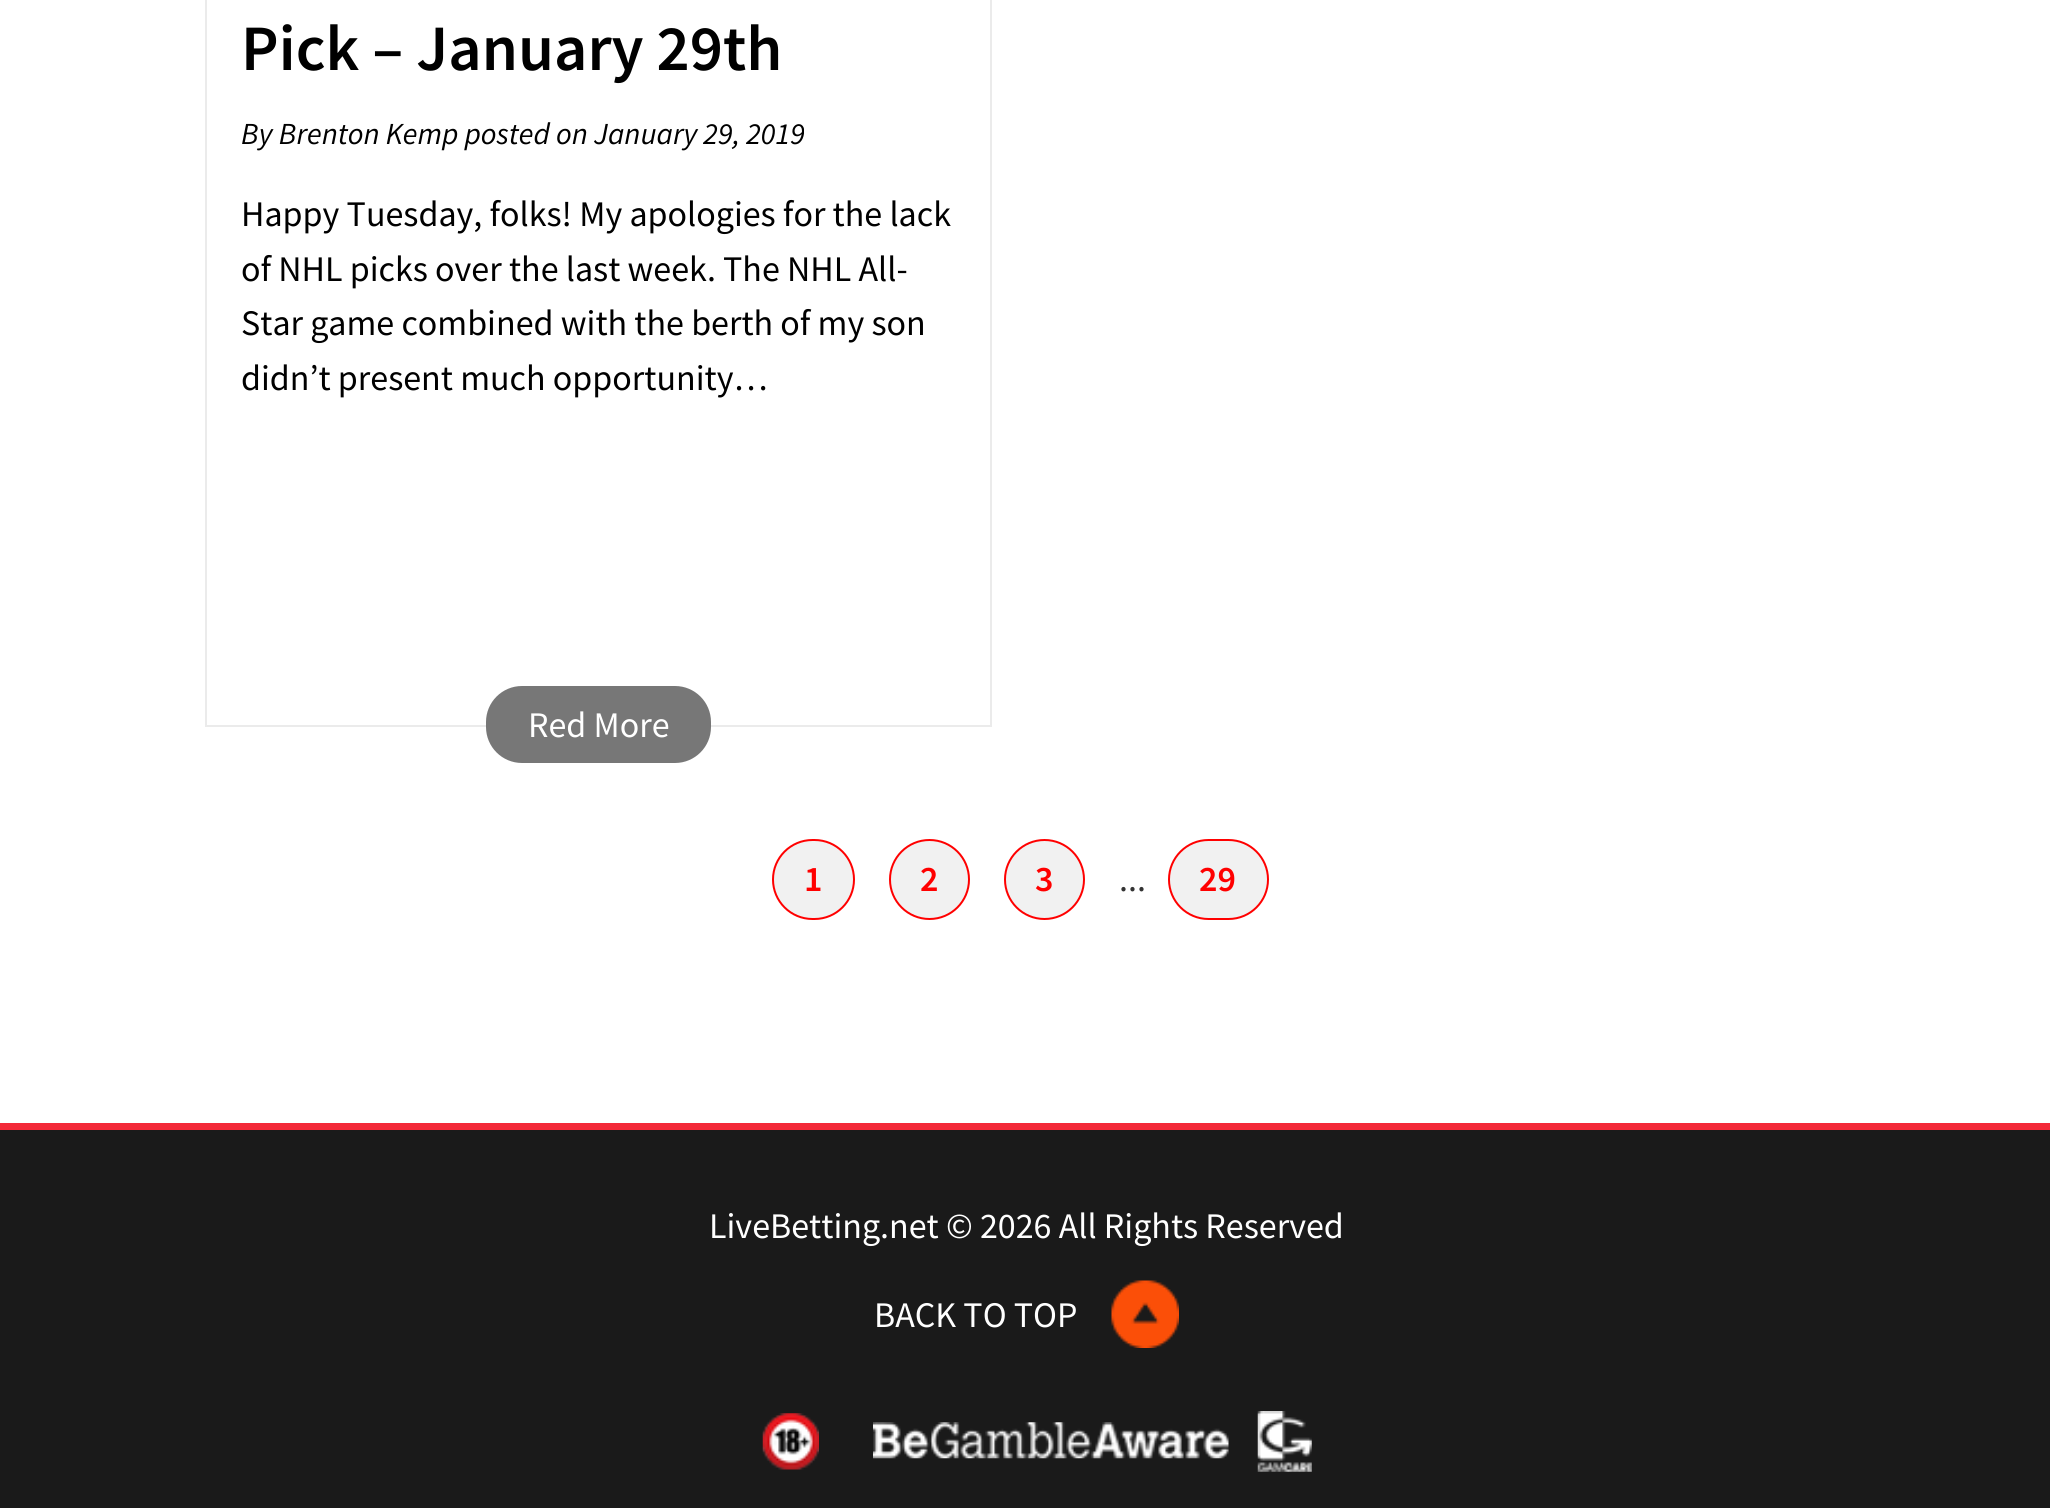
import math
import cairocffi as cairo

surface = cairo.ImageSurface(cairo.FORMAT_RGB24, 2050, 1508)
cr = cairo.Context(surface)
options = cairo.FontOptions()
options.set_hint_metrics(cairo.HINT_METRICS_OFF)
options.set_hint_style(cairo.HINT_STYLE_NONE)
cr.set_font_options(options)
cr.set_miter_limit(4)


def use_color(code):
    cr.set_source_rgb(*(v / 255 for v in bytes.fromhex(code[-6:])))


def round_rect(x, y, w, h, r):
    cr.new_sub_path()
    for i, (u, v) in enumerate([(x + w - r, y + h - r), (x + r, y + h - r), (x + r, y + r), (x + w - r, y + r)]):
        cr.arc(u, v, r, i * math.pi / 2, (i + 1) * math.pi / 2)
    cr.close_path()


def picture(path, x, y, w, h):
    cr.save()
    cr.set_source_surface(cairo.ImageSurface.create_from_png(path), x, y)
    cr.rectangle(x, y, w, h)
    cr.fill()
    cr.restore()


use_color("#ffffff")
cr.paint()
cr.rectangle(206, -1, 785, 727)
use_color("#ebebeb")
cr.stroke()
cr.select_font_face("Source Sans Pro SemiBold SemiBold")
cr.set_font_size(64.75)
use_color("#000000")
cr.move_to(241, 70)
cr.show_text("Pick – January 29th")
cr.select_font_face("Source Sans Pro", cairo.FONT_SLANT_ITALIC)
cr.set_font_size(30.6)
cr.move_to(241, 144)
cr.show_text("By Brenton Kemp posted on January 29, 2019")
cr.select_font_face("Source Sans Pro")
cr.set_font_size(36)
cr.move_to(241, 226)
cr.show_text("Happy Tuesday, folks! My apologies for the lack")
cr.move_to(241, 281)
cr.show_text("of NHL picks over the last week. The NHL All-")
cr.move_to(241, 335)
cr.show_text("Star game combined with the berth of my son")
cr.move_to(241, 390)
cr.show_text("didn’t present much opportunity…")
use_color("#777777")
round_rect(486, 686, 225, 77, 36)
cr.fill()
use_color("#ffffff")
cr.move_to(528, 737)
cr.show_text("Red More")
use_color("#f1f1f1")
round_rect(773, 840, 81, 79, 39.5)
cr.fill_preserve()
use_color("#ff0000")
cr.stroke()
cr.select_font_face("Source Sans Pro SemiBold SemiBold")
cr.move_to(804, 891)
cr.show_text("1")
use_color("#f1f1f1")
cr.new_path()
cr.arc(929.5, 879.5, 39.5, 0, 2 * math.pi)
cr.fill_preserve()
use_color("#ff0000")
cr.stroke()
cr.move_to(920, 891)
cr.show_text("2")
use_color("#f1f1f1")
cr.new_path()
cr.arc(1044.5, 879.5, 39.5, 0, 2 * math.pi)
cr.fill_preserve()
use_color("#ff0000")
cr.stroke()
cr.move_to(1035, 891)
cr.show_text("3")
cr.select_font_face("Source Sans Pro")
use_color("#333333")
cr.move_to(1119, 891)
cr.show_text("...")
use_color("#f1f1f1")
round_rect(1169, 840, 99, 79, 39.5)
cr.fill_preserve()
use_color("#ff0000")
cr.stroke()
cr.select_font_face("Source Sans Pro SemiBold SemiBold")
cr.move_to(1199, 891)
cr.show_text("29")
use_color("#1a1a1a")
cr.rectangle(0, 1130, 2050, 378)
cr.fill()
use_color("#f32938")
cr.rectangle(0, 1123, 2050, 7)
cr.fill()
cr.select_font_face("Source Sans Pro")
use_color("#ffffff")
cr.move_to(709, 1238)
cr.show_text("LiveBetting.net © 2026 All Rights Reserved")
cr.move_to(874, 1327)
cr.show_text("BACK TO TOP")
picture("img1.png", 1111, 1280, 68, 68)
picture("img2.png", 762, 1413, 57, 57)
picture("img3.png", 873, 1422, 356, 37)
picture("img4.png", 1257, 1411, 55, 61)
surface.write_to_png("result.png")
